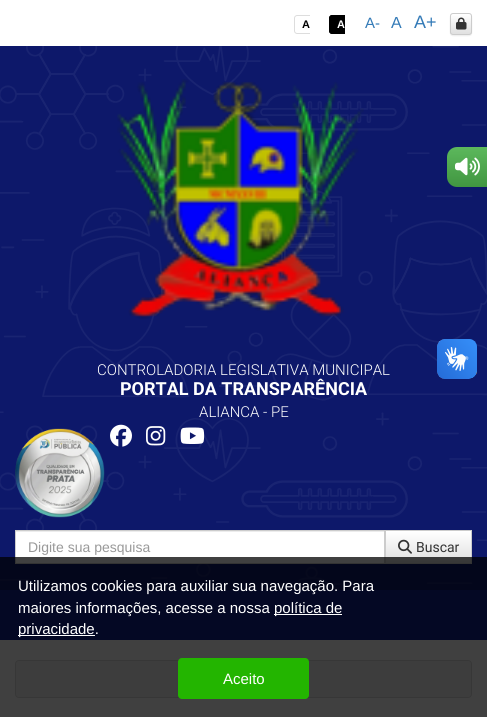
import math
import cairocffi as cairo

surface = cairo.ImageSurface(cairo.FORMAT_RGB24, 487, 717)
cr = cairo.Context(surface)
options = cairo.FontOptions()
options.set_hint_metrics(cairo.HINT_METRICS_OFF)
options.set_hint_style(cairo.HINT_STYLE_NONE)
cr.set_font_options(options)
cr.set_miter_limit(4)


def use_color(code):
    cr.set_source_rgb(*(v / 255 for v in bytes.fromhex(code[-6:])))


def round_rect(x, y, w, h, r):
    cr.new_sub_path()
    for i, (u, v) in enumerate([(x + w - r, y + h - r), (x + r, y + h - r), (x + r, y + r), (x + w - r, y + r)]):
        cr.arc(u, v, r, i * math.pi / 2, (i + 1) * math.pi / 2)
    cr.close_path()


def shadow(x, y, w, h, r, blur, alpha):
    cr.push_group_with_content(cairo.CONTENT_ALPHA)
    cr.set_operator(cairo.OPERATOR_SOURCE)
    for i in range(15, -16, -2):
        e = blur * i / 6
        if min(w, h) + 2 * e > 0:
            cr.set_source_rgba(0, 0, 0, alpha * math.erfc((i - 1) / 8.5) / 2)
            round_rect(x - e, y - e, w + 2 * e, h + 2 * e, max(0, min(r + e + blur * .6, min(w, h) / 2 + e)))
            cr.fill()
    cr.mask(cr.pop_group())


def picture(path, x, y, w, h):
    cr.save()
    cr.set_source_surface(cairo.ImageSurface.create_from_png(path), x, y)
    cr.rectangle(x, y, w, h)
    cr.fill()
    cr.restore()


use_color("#ffffff")
cr.paint()
use_color("#dddddd")
cr.set_fill_rule(cairo.FILL_RULE_EVEN_ODD)
cr.new_path()
cr.move_to(297, 15)
cr.line_to(310, 15)
cr.line_to(310, 34)
cr.line_to(297, 34)
cr.curve_to(295.5, 34, 294, 32.5, 294, 31)
cr.line_to(294, 18)
cr.curve_to(294, 16.5, 295.5, 15, 297, 15)
cr.close_path()
cr.move_to(297, 16)
cr.line_to(310, 16)
cr.line_to(310, 33)
cr.line_to(297, 33)
cr.curve_to(296, 33, 295, 32, 295, 31)
cr.line_to(295, 18)
cr.curve_to(295, 17, 296, 16, 297, 16)
cr.close_path()
cr.fill()
cr.select_font_face("Liberation Sans", cairo.FONT_SLANT_NORMAL, cairo.FONT_WEIGHT_BOLD)
cr.set_font_size(11)
use_color("#000000")
cr.move_to(302, 28)
cr.show_text("A")
cr.new_path()
cr.move_to(332, 15)
cr.line_to(345, 15)
cr.line_to(345, 34)
cr.line_to(332, 34)
cr.curve_to(330.5, 34, 329, 32.5, 329, 31)
cr.line_to(329, 18)
cr.curve_to(329, 16.5, 330.5, 15, 332, 15)
cr.close_path()
cr.fill()
cr.new_path()
cr.move_to(332, 15)
cr.line_to(345, 15)
cr.line_to(345, 34)
cr.line_to(332, 34)
cr.curve_to(330.5, 34, 329, 32.5, 329, 31)
cr.line_to(329, 18)
cr.curve_to(329, 16.5, 330.5, 15, 332, 15)
cr.close_path()
cr.move_to(332, 16)
cr.line_to(345, 16)
cr.line_to(345, 33)
cr.line_to(332, 33)
cr.curve_to(331, 33, 330, 32, 330, 31)
cr.line_to(330, 18)
cr.curve_to(330, 17, 331, 16, 332, 16)
cr.close_path()
cr.fill()
use_color("#ffffff")
cr.move_to(337, 28)
cr.show_text("A")
cr.select_font_face("Liberation Sans")
cr.set_font_size(15)
use_color("#337ab7")
cr.move_to(365, 28)
cr.show_text("A-")
cr.set_font_size(16)
cr.move_to(391, 28)
cr.show_text("A")
cr.set_font_size(18)
cr.move_to(414, 28)
cr.show_text("A+")
use_color("#000000")
shadow(450, 14, 22, 22, 3, 0.5, 0.07)
cr.save()
cr.set_fill_rule(cairo.FILL_RULE_WINDING)
round_rect(450, 13, 22, 22, 3)
cr.clip()
gradient = cairo.LinearGradient(461, 14, 461, 34)
gradient.add_color_stop_rgba(0, 1, 1, 1, 1)
gradient.add_color_stop_rgba(1, 0.878, 0.878, 0.878, 1)
cr.set_source(gradient)
cr.rectangle(450, 14, 22, 20)
cr.fill()
cr.restore()
round_rect(450.5, 13.5, 21, 21, 2.5)
use_color("#cccccc")
cr.set_line_width(1)
cr.stroke()
picture("img1.png", 456, 17, 11, 13)
use_color("#0d186a")
cr.rectangle(0, 46, 487, 544)
cr.fill()
picture("img5.png", 0, 46, 487, 544)
gradient = cairo.LinearGradient(467, 147, 467, 187)
gradient.add_color_stop_rgba(0, 0.361, 0.722, 0.361, 1)
gradient.add_color_stop_rgba(1, 0.255, 0.588, 0.255, 1)
cr.set_source(gradient)
cr.new_path()
cr.move_to(457, 147)
cr.line_to(487, 147)
cr.line_to(487, 187)
cr.line_to(457, 187)
cr.curve_to(451.5, 187, 447, 182.5, 447, 177)
cr.line_to(447, 157)
cr.curve_to(447, 151.5, 451.5, 147, 457, 147)
cr.close_path()
cr.fill()
picture("img2.png", 455, 157, 25, 19)
picture("img3.png", 437, 339, 40, 40)
picture("img4.png", 437, 339, 40, 40)
picture("img6.png", 117, 79, 247, 240)
cr.select_font_face("Roboto Light")
cr.set_font_size(15)
use_color("#ffffff")
cr.move_to(97, 375)
cr.show_text("CONTROLADORIA LEGISLATIVA MUNICIPAL")
cr.select_font_face("Roboto", cairo.FONT_SLANT_NORMAL, cairo.FONT_WEIGHT_BOLD)
cr.set_font_size(18)
cr.move_to(120, 395)
cr.show_text("PORTAL DA TRANSPARÊNCIA")
cr.select_font_face("Roboto Light")
cr.set_font_size(15)
cr.move_to(199, 417)
cr.show_text("ALIANCA - PE")
picture("img7.png", 15, 428, 90, 90)
picture("img8.png", 110, 424, 22, 23)
picture("img9.png", 146, 426, 20, 20)
picture("img10.png", 180, 427, 25, 17)
cr.rectangle(16, 532, 368, 31)
cr.fill()
use_color("#ececec")
cr.rectangle(16, 531, 368, 1)
cr.fill()
cr.rectangle(15.5, 530.5, 369, 33)
use_color("#cccccc")
cr.stroke()
cr.select_font_face("Liberation Sans")
cr.set_font_size(14)
use_color("#999999")
cr.move_to(28, 552)
cr.show_text("Digite sua pesquisa")
gradient = cairo.LinearGradient(429, 531, 429, 563)
gradient.add_color_stop_rgba(0, 1, 1, 1, 1)
gradient.add_color_stop_rgba(1, 0.878, 0.878, 0.878, 1)
cr.set_source(gradient)
cr.rectangle(386, 531, 85, 32)
cr.fill()
cr.rectangle(385.5, 530.5, 86, 33)
use_color("#cccccc")
cr.stroke()
picture("img11.png", 398, 539, 14, 15)
cr.select_font_face("Roboto")
use_color("#333333")
cr.move_to(416, 552)
cr.show_text("Buscar")
use_color("#11218e")
cr.rectangle(0, 590, 487, 50)
cr.fill()
use_color("#f5f5f5")
round_rect(15.5, 660.5, 456, 37, 3.5)
cr.fill_preserve()
use_color("#dddddd")
cr.stroke()
cr.set_source_rgba(0, 0, 0, 0.75)
cr.rectangle(0, 557, 487, 160)
cr.fill()
cr.select_font_face("Liberation Sans")
cr.set_font_size(15)
use_color("#ffffff")
cr.move_to(18, 591)
cr.show_text("Utilizamos cookies para auxiliar sua navegação. Para")
cr.move_to(18, 613)
cr.show_text("maiores informações, acesse a nossa")
cr.rectangle(274, 614, 68, 1)
cr.fill()
cr.move_to(274, 613)
cr.show_text("política de")
cr.rectangle(18, 635, 77, 1)
cr.fill()
cr.move_to(18, 634)
cr.show_text("privacidade.")
use_color("#23b500")
round_rect(178, 658, 131, 41, 4)
cr.fill()
use_color("#ffffff")
cr.move_to(223, 684)
cr.show_text("Aceito")
surface.write_to_png("result.png")
